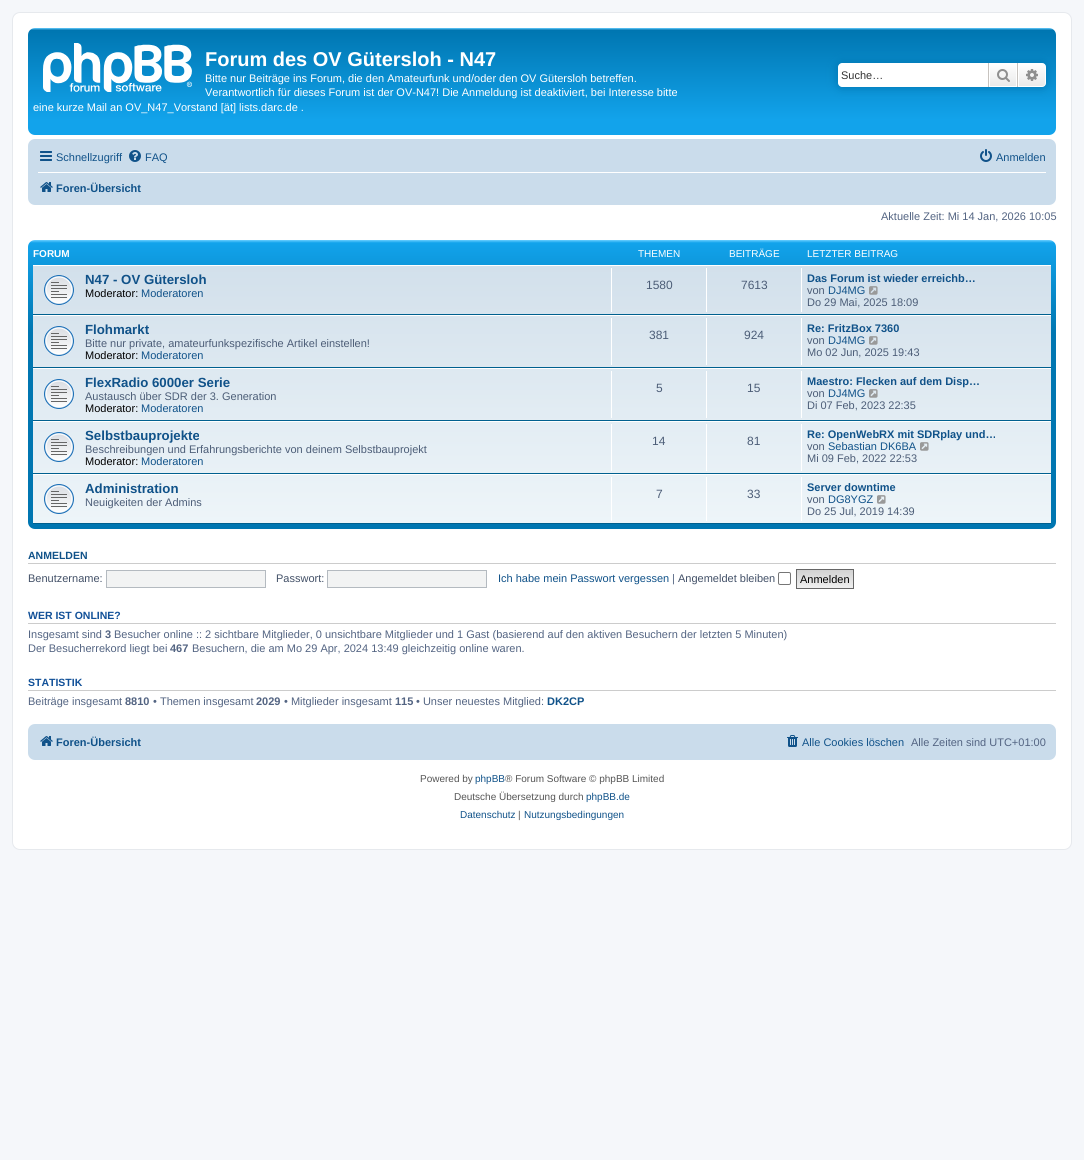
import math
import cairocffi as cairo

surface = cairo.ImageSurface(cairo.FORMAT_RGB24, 1084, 1160)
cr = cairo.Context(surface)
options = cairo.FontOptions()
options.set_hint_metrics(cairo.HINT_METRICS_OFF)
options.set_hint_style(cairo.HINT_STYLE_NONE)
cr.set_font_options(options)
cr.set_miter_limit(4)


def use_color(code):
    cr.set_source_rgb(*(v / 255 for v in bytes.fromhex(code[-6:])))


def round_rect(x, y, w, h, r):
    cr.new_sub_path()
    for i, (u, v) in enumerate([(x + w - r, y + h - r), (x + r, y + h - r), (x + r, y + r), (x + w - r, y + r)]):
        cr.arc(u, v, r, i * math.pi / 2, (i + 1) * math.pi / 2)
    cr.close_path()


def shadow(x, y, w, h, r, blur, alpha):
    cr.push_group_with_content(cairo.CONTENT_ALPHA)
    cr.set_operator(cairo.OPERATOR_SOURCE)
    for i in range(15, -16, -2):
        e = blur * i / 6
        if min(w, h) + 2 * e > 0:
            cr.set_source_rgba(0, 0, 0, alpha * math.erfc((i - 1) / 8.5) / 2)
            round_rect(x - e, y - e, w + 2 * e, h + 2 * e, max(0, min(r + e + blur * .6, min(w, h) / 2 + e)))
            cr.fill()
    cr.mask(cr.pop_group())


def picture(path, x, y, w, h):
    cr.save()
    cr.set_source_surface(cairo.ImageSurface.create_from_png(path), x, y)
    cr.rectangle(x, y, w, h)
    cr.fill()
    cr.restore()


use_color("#f5f7fa")
cr.paint()
use_color("#ffffff")
round_rect(12.5, 12.5, 1059, 837, 7.5)
cr.fill_preserve()
use_color("#e6e9ed")
cr.set_line_width(1)
cr.stroke()
gradient = cairo.LinearGradient(542, 28, 542, 135)
gradient.add_color_stop_rgba(0, 0.416, 0.808, 1, 1)
gradient.add_color_stop_rgba(0.02, 0, 0.463, 0.694, 1)
gradient.add_color_stop_rgba(0.86, 0.071, 0.639, 0.922, 1)
gradient.add_color_stop_rgba(1, 0.071, 0.639, 0.922, 1)
cr.set_source(gradient)
round_rect(28, 28, 1028, 107, 7)
cr.fill()
picture("img1.png", 43, 43, 149, 49)
cr.select_font_face("Liberation Sans", cairo.FONT_SLANT_NORMAL, cairo.FONT_WEIGHT_BOLD)
cr.set_font_size(20)
use_color("#ffffff")
cr.move_to(205, 66)
cr.show_text("Forum des OV Gütersloh - N47")
cr.select_font_face("Liberation Sans")
cr.set_font_size(11)
cr.move_to(205, 82)
cr.show_text("Bitte nur Beiträge ins Forum, die den Amateurfunk und/oder den OV Gütersloh betreffen.")
cr.move_to(205, 96)
cr.show_text("Verantwortlich für dieses Forum ist der OV-N47! Die Anmeldung ist deaktiviert, bei Interesse bitte")
cr.move_to(33, 111)
cr.show_text("eine kurze Mail an OV_N47_Vorstand [ät] lists.darc.de .")
use_color("#0075b0")
shadow(838, 63, 208, 24, 4, 5, 1)
use_color("#ffffff")
cr.new_path()
cr.move_to(842, 63)
cr.line_to(988, 63)
cr.line_to(988, 87)
cr.line_to(842, 87)
cr.curve_to(840, 87, 838, 85, 838, 83)
cr.line_to(838, 67)
cr.curve_to(838, 65, 840, 63, 842, 63)
cr.close_path()
cr.fill()
use_color("#333333")
cr.move_to(841, 79)
cr.show_text("Suche…")
gradient = cairo.LinearGradient(1003, 63, 1003, 87)
gradient.add_color_stop_rgba(0, 1, 1, 1, 1)
gradient.add_color_stop_rgba(1, 0.914, 0.914, 0.914, 1)
cr.set_source(gradient)
cr.rectangle(990, 64, 26, 22)
cr.fill()
cr.rectangle(989.5, 63.5, 27, 23)
use_color("#ffffff")
cr.stroke()
use_color("#c7c3bf")
cr.rectangle(1017, 63, 1, 24)
cr.fill()
cr.rectangle(988, 63, 1, 24)
cr.fill()
picture("img2.png", 997, 69, 13, 13)
gradient = cairo.LinearGradient(1032, 63, 1032, 87)
gradient.add_color_stop_rgba(0, 1, 1, 1, 1)
gradient.add_color_stop_rgba(1, 0.914, 0.914, 0.914, 1)
cr.set_source(gradient)
cr.new_path()
cr.move_to(1018.5, 63.5)
cr.line_to(1042, 63.5)
cr.curve_to(1044, 63.5, 1045.5, 65, 1045.5, 67)
cr.line_to(1045.5, 83)
cr.curve_to(1045.5, 85, 1044, 86.5, 1042, 86.5)
cr.line_to(1018.5, 86.5)
cr.close_path()
cr.fill_preserve()
use_color("#ffffff")
cr.stroke()
picture("img3.png", 1026, 69, 12, 12)
use_color("#cadceb")
round_rect(28, 139, 1028, 66, 7)
cr.fill()
picture("img4.png", 40, 151, 12, 10)
use_color("#105289")
cr.move_to(56, 161)
cr.show_text("Schnellzugriff")
picture("img5.png", 129, 150, 12, 12)
cr.move_to(145, 161)
cr.show_text("FAQ")
picture("img6.png", 980, 149, 12, 13)
cr.move_to(996, 161)
cr.show_text("Anmelden")
use_color("#ffffff")
cr.rectangle(38, 172, 1008, 1)
cr.fill()
picture("img7.png", 40, 182, 13, 10)
cr.select_font_face("Liberation Sans", cairo.FONT_SLANT_NORMAL, cairo.FONT_WEIGHT_BOLD)
use_color("#105289")
cr.move_to(56, 192)
cr.show_text("Foren-Übersicht")
cr.select_font_face("Liberation Sans")
use_color("#536482")
cr.move_to(881, 220)
cr.show_text("Aktuelle Zeit: Mi 14 Jan, 2026 10:05")
gradient = cairo.LinearGradient(542, 240, 542, 529)
gradient.add_color_stop_rgba(0, 0.416, 0.808, 1, 1)
gradient.add_color_stop_rgba(0.01, 0.071, 0.639, 0.922, 1)
gradient.add_color_stop_rgba(0.32, 0, 0.463, 0.694, 1)
gradient.add_color_stop_rgba(1, 0, 0.463, 0.694, 1)
cr.set_source(gradient)
round_rect(28, 240, 1028, 289, 7)
cr.fill()
cr.select_font_face("Liberation Sans", cairo.FONT_SLANT_NORMAL, cairo.FONT_WEIGHT_BOLD)
cr.set_font_size(10)
use_color("#ffffff")
cr.move_to(33, 257)
cr.show_text("FORUM")
cr.select_font_face("Liberation Sans")
cr.move_to(638, 257)
cr.show_text("THEMEN")
cr.move_to(729, 257)
cr.show_text("BEITRÄGE")
cr.move_to(807, 257)
cr.show_text("LETZTER BEITRAG")
gradient = cairo.LinearGradient(542, 265, 542, 524)
gradient.add_color_stop_rgba(0, 0.824, 0.878, 0.922, 1)
gradient.add_color_stop_rgba(1, 0.933, 0.961, 0.976, 1)
cr.set_source(gradient)
cr.rectangle(33, 266, 1018, 257)
cr.fill()
use_color("#ffffff")
cr.rectangle(33, 265, 1018, 1)
cr.fill()
use_color("#00608f")
cr.rectangle(33, 314, 1018, 1)
cr.fill()
picture("img8.png", 44, 275, 30, 30)
cr.select_font_face("Liberation Sans", cairo.FONT_SLANT_NORMAL, cairo.FONT_WEIGHT_BOLD)
cr.set_font_size(13.25)
use_color("#105289")
cr.move_to(85, 284)
cr.show_text("N47 - OV Gütersloh")
cr.select_font_face("Liberation Sans")
cr.set_font_size(11)
use_color("#000000")
cr.move_to(85, 297)
cr.show_text("Moderator:")
use_color("#105289")
cr.move_to(141, 297)
cr.show_text("Moderatoren")
use_color("#ffffff")
cr.rectangle(611, 268, 1, 44)
cr.fill()
cr.set_font_size(12)
use_color("#4c5d77")
cr.move_to(646, 289)
cr.show_text("1580")
use_color("#ffffff")
cr.rectangle(706, 268, 1, 44)
cr.fill()
use_color("#4c5d77")
cr.move_to(741, 289)
cr.show_text("7613")
use_color("#ffffff")
cr.rectangle(801, 268, 1, 44)
cr.fill()
cr.select_font_face("Liberation Sans", cairo.FONT_SLANT_NORMAL, cairo.FONT_WEIGHT_BOLD)
cr.set_font_size(11)
use_color("#105289")
cr.move_to(807, 282)
cr.show_text("Das Forum ist wieder erreichb…")
cr.select_font_face("Liberation Sans")
use_color("#4c5d77")
cr.move_to(807, 294)
cr.show_text("von")
use_color("#105289")
cr.move_to(828, 294)
cr.show_text("DJ4MG")
picture("img9.png", 869, 286, 9, 9)
use_color("#4c5d77")
cr.move_to(807, 306)
cr.show_text("Do 29 Mai, 2025 18:09")
use_color("#ffffff")
cr.rectangle(33, 315, 1018, 1)
cr.fill()
use_color("#00608f")
cr.rectangle(33, 367, 1018, 1)
cr.fill()
picture("img10.png", 44, 326, 30, 30)
cr.select_font_face("Liberation Sans", cairo.FONT_SLANT_NORMAL, cairo.FONT_WEIGHT_BOLD)
cr.set_font_size(13.25)
use_color("#105289")
cr.move_to(85, 334)
cr.show_text("Flohmarkt")
cr.select_font_face("Liberation Sans")
cr.set_font_size(11)
use_color("#4c5d77")
cr.move_to(85, 347)
cr.show_text("Bitte nur private, amateurfunkspezifische Artikel einstellen!")
use_color("#000000")
cr.move_to(85, 359)
cr.show_text("Moderator:")
use_color("#105289")
cr.move_to(141, 359)
cr.show_text("Moderatoren")
use_color("#ffffff")
cr.rectangle(611, 318, 1, 47)
cr.fill()
cr.set_font_size(12)
use_color("#4c5d77")
cr.move_to(649, 339)
cr.show_text("381")
use_color("#ffffff")
cr.rectangle(706, 318, 1, 47)
cr.fill()
use_color("#4c5d77")
cr.move_to(744, 339)
cr.show_text("924")
use_color("#ffffff")
cr.rectangle(801, 318, 1, 47)
cr.fill()
cr.select_font_face("Liberation Sans", cairo.FONT_SLANT_NORMAL, cairo.FONT_WEIGHT_BOLD)
cr.set_font_size(11)
use_color("#105289")
cr.move_to(807, 332)
cr.show_text("Re: FritzBox 7360")
cr.select_font_face("Liberation Sans")
use_color("#4c5d77")
cr.move_to(807, 344)
cr.show_text("von")
use_color("#105289")
cr.move_to(828, 344)
cr.show_text("DJ4MG")
picture("img11.png", 869, 336, 9, 9)
use_color("#4c5d77")
cr.move_to(807, 356)
cr.show_text("Mo 02 Jun, 2025 19:43")
use_color("#ffffff")
cr.rectangle(33, 368, 1018, 1)
cr.fill()
use_color("#00608f")
cr.rectangle(33, 420, 1018, 1)
cr.fill()
picture("img12.png", 44, 379, 30, 30)
cr.select_font_face("Liberation Sans", cairo.FONT_SLANT_NORMAL, cairo.FONT_WEIGHT_BOLD)
cr.set_font_size(13.25)
use_color("#105289")
cr.move_to(85, 387)
cr.show_text("FlexRadio 6000er Serie")
cr.select_font_face("Liberation Sans")
cr.set_font_size(11)
use_color("#4c5d77")
cr.move_to(85, 400)
cr.show_text("Austausch über SDR der 3. Generation")
use_color("#000000")
cr.move_to(85, 412)
cr.show_text("Moderator:")
use_color("#105289")
cr.move_to(141, 412)
cr.show_text("Moderatoren")
use_color("#ffffff")
cr.rectangle(611, 371, 1, 47)
cr.fill()
cr.set_font_size(12)
use_color("#4c5d77")
cr.move_to(656, 392)
cr.show_text("5")
use_color("#ffffff")
cr.rectangle(706, 371, 1, 47)
cr.fill()
use_color("#4c5d77")
cr.move_to(747, 392)
cr.show_text("15")
use_color("#ffffff")
cr.rectangle(801, 371, 1, 47)
cr.fill()
cr.select_font_face("Liberation Sans", cairo.FONT_SLANT_NORMAL, cairo.FONT_WEIGHT_BOLD)
cr.set_font_size(11)
use_color("#105289")
cr.move_to(807, 385)
cr.show_text("Maestro: Flecken auf dem Disp…")
cr.select_font_face("Liberation Sans")
use_color("#4c5d77")
cr.move_to(807, 397)
cr.show_text("von")
use_color("#105289")
cr.move_to(828, 397)
cr.show_text("DJ4MG")
picture("img13.png", 869, 389, 9, 9)
use_color("#4c5d77")
cr.move_to(807, 409)
cr.show_text("Di 07 Feb, 2023 22:35")
use_color("#ffffff")
cr.rectangle(33, 421, 1018, 1)
cr.fill()
use_color("#00608f")
cr.rectangle(33, 473, 1018, 1)
cr.fill()
picture("img14.png", 44, 432, 30, 30)
cr.select_font_face("Liberation Sans", cairo.FONT_SLANT_NORMAL, cairo.FONT_WEIGHT_BOLD)
cr.set_font_size(13.25)
use_color("#105289")
cr.move_to(85, 440)
cr.show_text("Selbstbauprojekte")
cr.select_font_face("Liberation Sans")
cr.set_font_size(11)
use_color("#4c5d77")
cr.move_to(85, 453)
cr.show_text("Beschreibungen und Erfahrungsberichte von deinem Selbstbauprojekt")
use_color("#000000")
cr.move_to(85, 465)
cr.show_text("Moderator:")
use_color("#105289")
cr.move_to(141, 465)
cr.show_text("Moderatoren")
use_color("#ffffff")
cr.rectangle(611, 424, 1, 47)
cr.fill()
cr.set_font_size(12)
use_color("#4c5d77")
cr.move_to(652, 445)
cr.show_text("14")
use_color("#ffffff")
cr.rectangle(706, 424, 1, 47)
cr.fill()
use_color("#4c5d77")
cr.move_to(747, 445)
cr.show_text("81")
use_color("#ffffff")
cr.rectangle(801, 424, 1, 47)
cr.fill()
cr.select_font_face("Liberation Sans", cairo.FONT_SLANT_NORMAL, cairo.FONT_WEIGHT_BOLD)
cr.set_font_size(11)
use_color("#105289")
cr.move_to(807, 438)
cr.show_text("Re: OpenWebRX mit SDRplay und…")
cr.select_font_face("Liberation Sans")
use_color("#4c5d77")
cr.move_to(807, 450)
cr.show_text("von")
use_color("#105289")
cr.move_to(828, 450)
cr.show_text("Sebastian DK6BA")
picture("img15.png", 920, 442, 9, 9)
use_color("#4c5d77")
cr.move_to(807, 462)
cr.show_text("Mi 09 Feb, 2022 22:53")
use_color("#ffffff")
cr.rectangle(33, 474, 1018, 1)
cr.fill()
use_color("#00608f")
cr.rectangle(33, 523, 1018, 1)
cr.fill()
picture("img16.png", 44, 484, 30, 30)
cr.select_font_face("Liberation Sans", cairo.FONT_SLANT_NORMAL, cairo.FONT_WEIGHT_BOLD)
cr.set_font_size(13.25)
use_color("#105289")
cr.move_to(85, 493)
cr.show_text("Administration")
cr.select_font_face("Liberation Sans")
cr.set_font_size(11)
use_color("#4c5d77")
cr.move_to(85, 506)
cr.show_text("Neuigkeiten der Admins")
use_color("#ffffff")
cr.rectangle(611, 477, 1, 44)
cr.fill()
cr.set_font_size(12)
use_color("#4c5d77")
cr.move_to(656, 498)
cr.show_text("7")
use_color("#ffffff")
cr.rectangle(706, 477, 1, 44)
cr.fill()
use_color("#4c5d77")
cr.move_to(747, 498)
cr.show_text("33")
use_color("#ffffff")
cr.rectangle(801, 477, 1, 44)
cr.fill()
cr.select_font_face("Liberation Sans", cairo.FONT_SLANT_NORMAL, cairo.FONT_WEIGHT_BOLD)
cr.set_font_size(11)
use_color("#105289")
cr.move_to(807, 491)
cr.show_text("Server downtime")
cr.select_font_face("Liberation Sans")
use_color("#4c5d77")
cr.move_to(807, 503)
cr.show_text("von")
use_color("#105289")
cr.move_to(828, 503)
cr.show_text("DG8YGZ")
picture("img17.png", 877, 495, 9, 9)
use_color("#4c5d77")
cr.move_to(807, 515)
cr.show_text("Do 25 Jul, 2019 14:39")
use_color("#cccccc")
cr.rectangle(28, 563, 1028, 1)
cr.fill()
cr.select_font_face("Liberation Sans", cairo.FONT_SLANT_NORMAL, cairo.FONT_WEIGHT_BOLD)
cr.set_font_size(10.5)
use_color("#105289")
cr.move_to(28, 559)
cr.show_text("ANMELDEN")
cr.select_font_face("Liberation Sans")
cr.set_font_size(11)
use_color("#425067")
cr.move_to(28, 582)
cr.show_text("Benutzername:")
use_color("#f2f3f3")
cr.rectangle(106.5, 570.5, 159, 17)
cr.fill_preserve()
use_color("#b4bac0")
cr.stroke()
use_color("#425067")
cr.move_to(276, 582)
cr.show_text("Passwort:")
use_color("#f2f3f3")
cr.rectangle(327.5, 570.5, 159, 17)
cr.fill_preserve()
use_color("#b4bac0")
cr.stroke()
use_color("#105289")
cr.move_to(498, 582)
cr.show_text("Ich habe mein Passwort vergessen")
use_color("#536482")
cr.move_to(672, 582)
cr.show_text("|")
use_color("#425067")
cr.move_to(678, 582)
cr.show_text("Angemeldet bleiben")
round_rect(778.5, 572.5, 12, 12, 1.5)
use_color("#767676")
cr.stroke()
gradient = cairo.LinearGradient(825, 570, 825, 588)
gradient.add_color_stop_rgba(0, 0.824, 0.824, 0.824, 1)
gradient.add_color_stop_rgba(1, 0.937, 0.937, 0.937, 1)
cr.set_source(gradient)
cr.rectangle(797, 570, 56, 18)
cr.fill()
cr.rectangle(796.5, 569.5, 57, 19)
use_color("#666666")
cr.stroke()
use_color("#000000")
cr.move_to(800, 583)
cr.show_text("Anmelden")
use_color("#cccccc")
cr.rectangle(28, 623, 1028, 1)
cr.fill()
cr.select_font_face("Liberation Sans", cairo.FONT_SLANT_NORMAL, cairo.FONT_WEIGHT_BOLD)
cr.set_font_size(10.5)
use_color("#115098")
cr.move_to(28, 619)
cr.show_text("WER IST ONLINE?")
cr.select_font_face("Liberation Sans")
cr.set_font_size(11)
use_color("#536482")
cr.move_to(28, 638)
cr.show_text("Insgesamt sind")
cr.select_font_face("Liberation Sans", cairo.FONT_SLANT_NORMAL, cairo.FONT_WEIGHT_BOLD)
cr.move_to(105, 638)
cr.show_text("3")
cr.select_font_face("Liberation Sans")
cr.move_to(114, 638)
cr.show_text("Besucher online :: 2 sichtbare Mitglieder, 0 unsichtbare Mitglieder und 1 Gast (basierend auf den aktiven Besuchern der letzten 5 Minuten)")
cr.move_to(28, 652)
cr.show_text("Der Besucherrekord liegt bei")
cr.select_font_face("Liberation Sans", cairo.FONT_SLANT_NORMAL, cairo.FONT_WEIGHT_BOLD)
cr.move_to(170, 652)
cr.show_text("467")
cr.select_font_face("Liberation Sans")
cr.move_to(192, 652)
cr.show_text("Besuchern, die am Mo 29 Apr, 2024 13:49 gleichzeitig online waren.")
use_color("#cccccc")
cr.rectangle(28, 690, 1028, 1)
cr.fill()
cr.select_font_face("Liberation Sans", cairo.FONT_SLANT_NORMAL, cairo.FONT_WEIGHT_BOLD)
cr.set_font_size(10.5)
use_color("#115098")
cr.move_to(28, 686)
cr.show_text("STATISTIK")
cr.select_font_face("Liberation Sans")
cr.set_font_size(11)
use_color("#536482")
cr.move_to(28, 705)
cr.show_text("Beiträge insgesamt")
cr.select_font_face("Liberation Sans", cairo.FONT_SLANT_NORMAL, cairo.FONT_WEIGHT_BOLD)
cr.move_to(125, 705)
cr.show_text("8810")
cr.select_font_face("Liberation Sans")
cr.move_to(153, 705)
cr.show_text("• Themen insgesamt")
cr.select_font_face("Liberation Sans", cairo.FONT_SLANT_NORMAL, cairo.FONT_WEIGHT_BOLD)
cr.move_to(256, 705)
cr.show_text("2029")
cr.select_font_face("Liberation Sans")
cr.move_to(284, 705)
cr.show_text("• Mitglieder insgesamt")
cr.select_font_face("Liberation Sans", cairo.FONT_SLANT_NORMAL, cairo.FONT_WEIGHT_BOLD)
cr.move_to(395, 705)
cr.show_text("115")
cr.select_font_face("Liberation Sans")
cr.move_to(416, 705)
cr.show_text("• Unser neuestes Mitglied:")
cr.select_font_face("Liberation Sans", cairo.FONT_SLANT_NORMAL, cairo.FONT_WEIGHT_BOLD)
use_color("#105289")
cr.move_to(547, 705)
cr.show_text("DK2CP")
use_color("#cadceb")
round_rect(28, 724, 1028, 36, 7)
cr.fill()
picture("img7.png", 40, 736, 13, 10)
use_color("#105289")
cr.move_to(56, 746)
cr.show_text("Foren-Übersicht")
picture("img18.png", 787, 735, 11, 12)
cr.select_font_face("Liberation Sans")
cr.move_to(802, 746)
cr.show_text("Alle Cookies löschen")
use_color("#536482")
cr.move_to(911, 746)
cr.show_text("Alle Zeiten sind UTC+01:00")
cr.set_font_size(10)
use_color("#555555")
cr.move_to(420, 782)
cr.show_text("Powered by")
use_color("#105289")
cr.move_to(475, 782)
cr.show_text("phpBB")
use_color("#555555")
cr.move_to(505, 782)
cr.show_text("® Forum Software © phpBB Limited")
cr.move_to(454, 800)
cr.show_text("Deutsche Übersetzung durch")
use_color("#105289")
cr.move_to(586, 800)
cr.show_text("phpBB.de")
cr.move_to(460, 818)
cr.show_text("Datenschutz")
use_color("#555555")
cr.move_to(518, 818)
cr.show_text("|")
use_color("#105289")
cr.move_to(524, 818)
cr.show_text("Nutzungsbedingungen")
surface.write_to_png("result.png")
